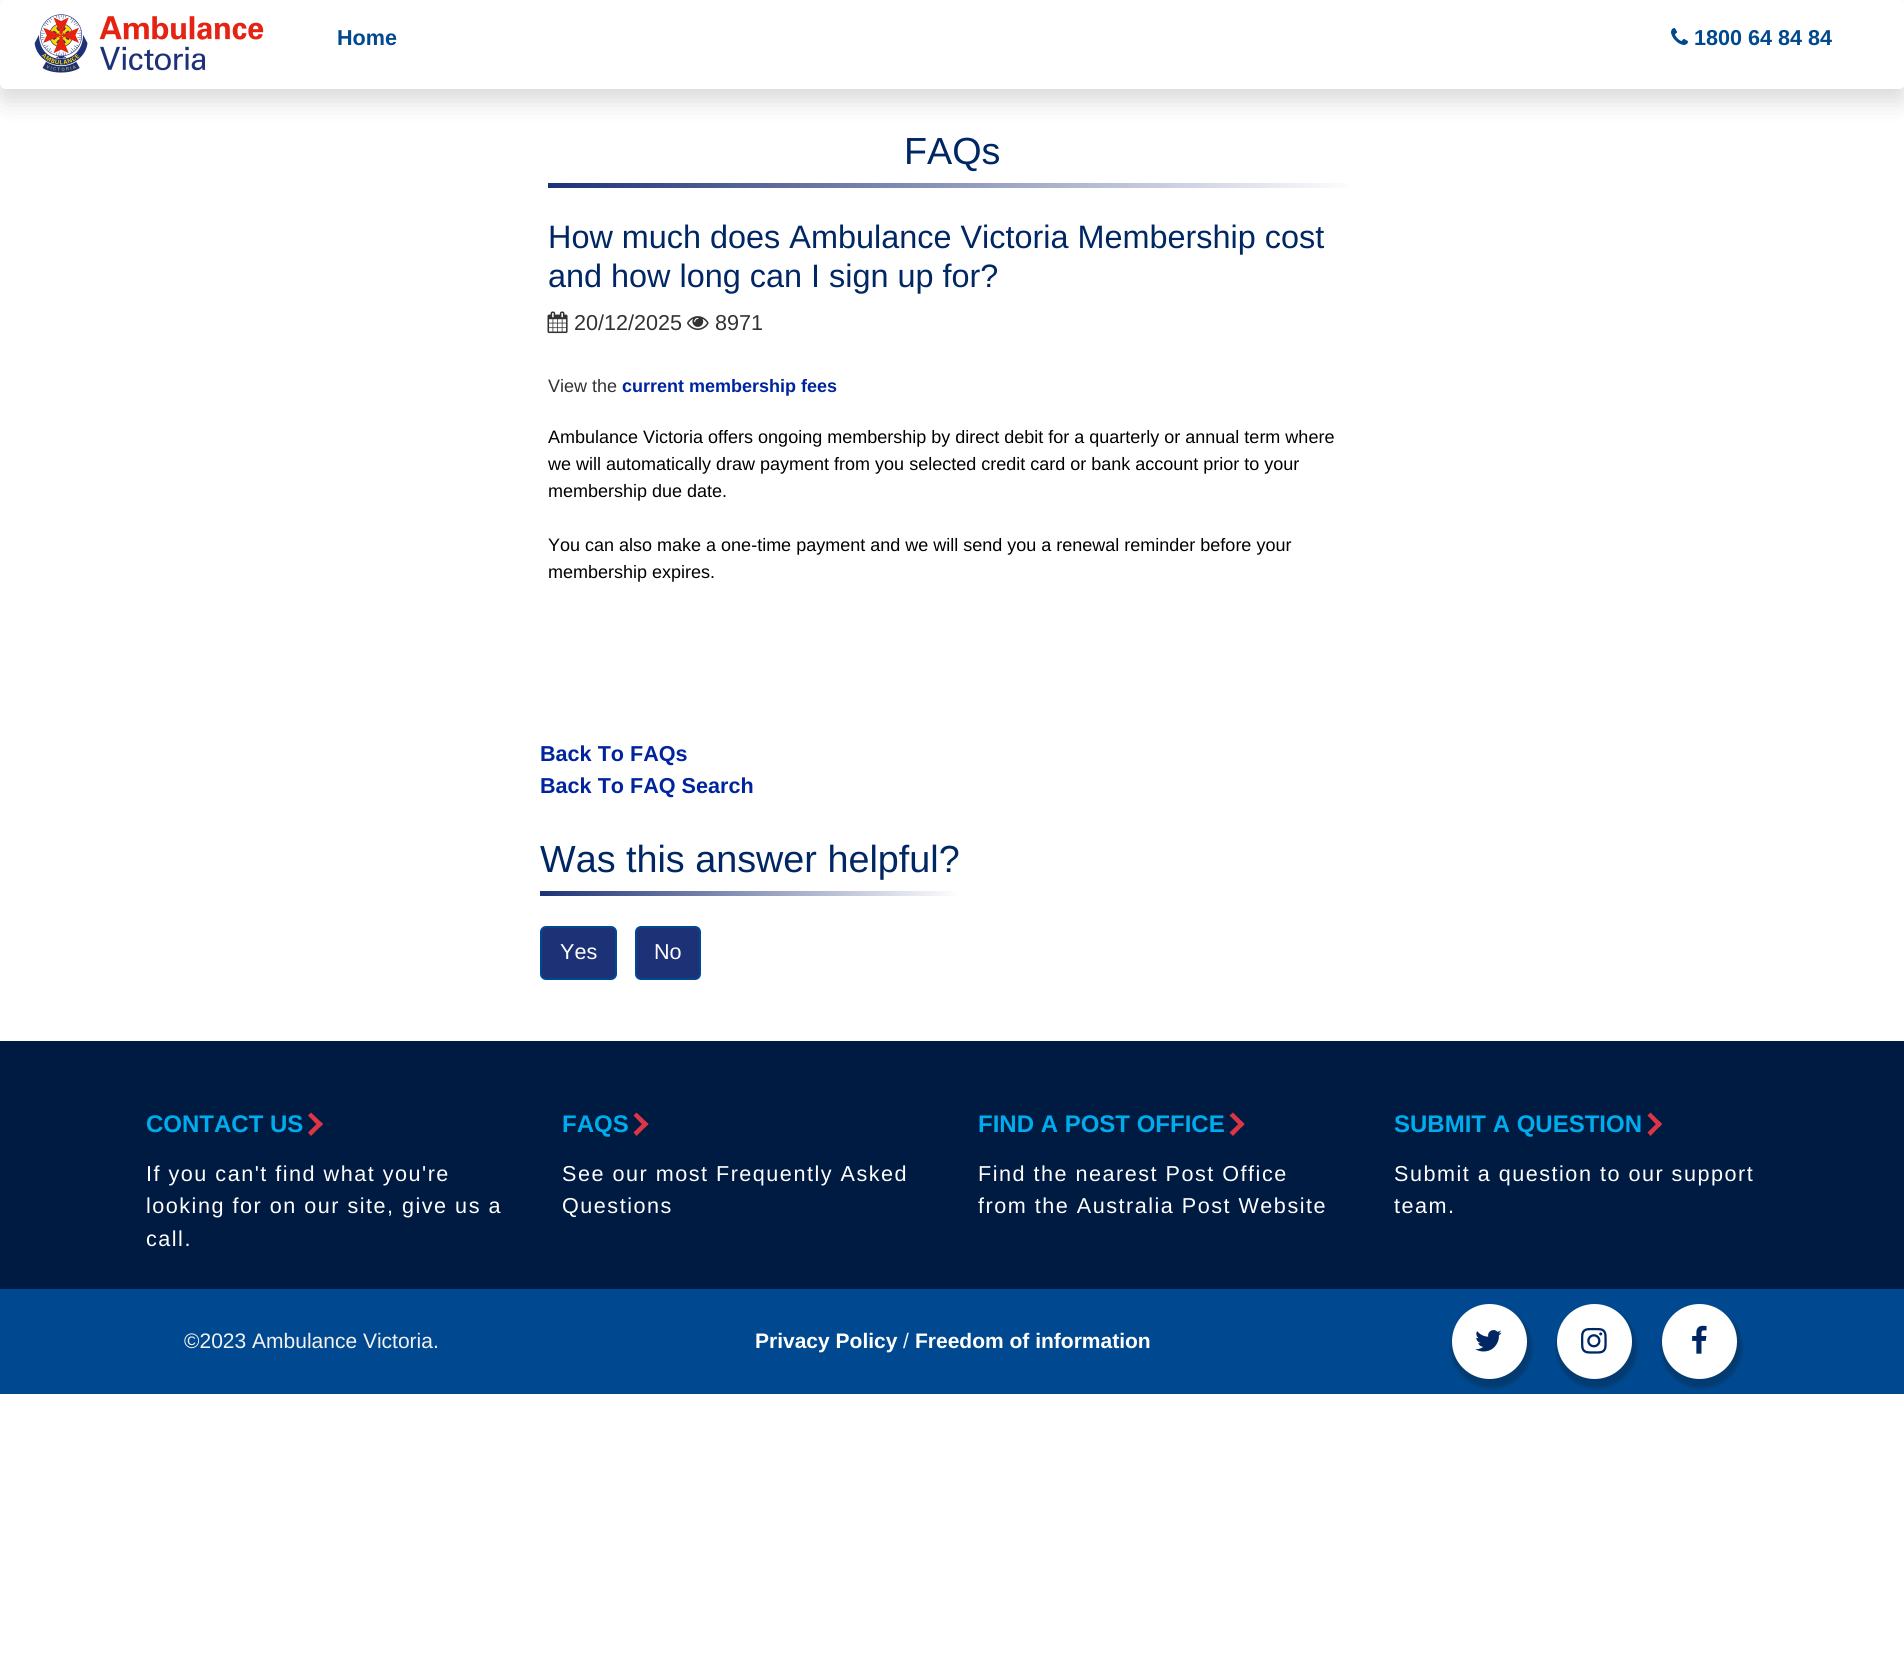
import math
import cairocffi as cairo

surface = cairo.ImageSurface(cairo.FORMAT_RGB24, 1904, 1660)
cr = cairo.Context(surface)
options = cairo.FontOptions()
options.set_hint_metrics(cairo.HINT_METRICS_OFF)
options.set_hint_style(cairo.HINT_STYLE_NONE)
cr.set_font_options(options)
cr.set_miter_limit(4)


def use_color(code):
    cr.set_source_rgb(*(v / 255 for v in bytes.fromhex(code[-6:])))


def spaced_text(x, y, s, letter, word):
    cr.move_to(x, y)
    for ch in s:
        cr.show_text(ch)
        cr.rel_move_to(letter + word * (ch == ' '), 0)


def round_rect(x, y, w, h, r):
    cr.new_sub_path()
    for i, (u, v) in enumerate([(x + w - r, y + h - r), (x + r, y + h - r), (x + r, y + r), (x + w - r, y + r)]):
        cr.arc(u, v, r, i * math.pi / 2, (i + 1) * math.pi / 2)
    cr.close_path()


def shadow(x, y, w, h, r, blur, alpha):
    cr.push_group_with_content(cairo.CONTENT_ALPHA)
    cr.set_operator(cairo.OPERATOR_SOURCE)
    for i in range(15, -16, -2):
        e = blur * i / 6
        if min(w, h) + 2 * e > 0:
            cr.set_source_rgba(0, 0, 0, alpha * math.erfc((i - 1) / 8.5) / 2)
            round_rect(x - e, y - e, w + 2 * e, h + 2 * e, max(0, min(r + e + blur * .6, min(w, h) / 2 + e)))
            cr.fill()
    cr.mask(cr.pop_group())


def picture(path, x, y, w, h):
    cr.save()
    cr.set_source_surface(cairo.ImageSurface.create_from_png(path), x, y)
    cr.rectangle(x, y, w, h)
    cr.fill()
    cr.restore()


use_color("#ffffff")
cr.paint()
use_color("#000000")
shadow(0, 12, 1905, 89, 6, 12, 0.15)
use_color("#ffffff")
round_rect(0, 0, 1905, 89, 6)
cr.fill()
picture("img1.png", 34, 14, 230, 59)
cr.select_font_face("Liberation Sans", cairo.FONT_SLANT_NORMAL, cairo.FONT_WEIGHT_BOLD)
cr.set_font_size(21.6)
use_color("#004990")
cr.move_to(337, 45)
cr.show_text("Home")
picture("img2.png", 1671, 28, 17, 17)
cr.move_to(1694, 45)
cr.show_text("1800 64 84 84")
cr.select_font_face("Liberation Sans")
cr.set_font_size(37.75)
use_color("#002764")
cr.move_to(904, 164)
cr.show_text("FAQs")
gradient = cairo.LinearGradient(548, 185, 1358, 185)
gradient.add_color_stop_rgba(0, 0.114, 0.192, 0.463, 1)
gradient.add_color_stop_rgba(1, 1, 1, 1, 1)
cr.set_source(gradient)
cr.rectangle(548, 183, 801, 5)
cr.fill()
cr.set_font_size(32.4)
use_color("#002764")
cr.move_to(548, 248)
cr.show_text("How much does Ambulance Victoria Membership cost")
cr.move_to(548, 287)
cr.show_text("and how long can I sign up for?")
picture("img3.png", 547, 311, 21, 23)
cr.set_font_size(21.6)
use_color("#333333")
cr.move_to(574, 330)
cr.show_text("20/12/2025")
picture("img4.png", 687, 316, 22, 14)
cr.move_to(715, 330)
cr.show_text("8971")
cr.set_font_size(18)
cr.move_to(548, 392)
cr.show_text("View the")
cr.select_font_face("Liberation Sans", cairo.FONT_SLANT_NORMAL, cairo.FONT_WEIGHT_BOLD)
use_color("#00249e")
cr.move_to(622, 392)
cr.show_text("current membership fees")
cr.select_font_face("Liberation Sans")
use_color("#000000")
cr.move_to(548, 443)
cr.show_text("Ambulance Victoria offers ongoing membership by direct debit for a quarterly or annual term where")
cr.move_to(548, 470)
cr.show_text("we will automatically draw payment from you selected credit card or bank account prior to your")
cr.move_to(548, 497)
cr.show_text("membership due date.")
cr.move_to(548, 551)
cr.show_text("You can also make a one-time payment and we will send you a renewal reminder before your")
cr.move_to(548, 578)
cr.show_text("membership expires.")
cr.select_font_face("Liberation Sans", cairo.FONT_SLANT_NORMAL, cairo.FONT_WEIGHT_BOLD)
cr.set_font_size(21.6)
use_color("#00249e")
cr.move_to(540, 761)
cr.show_text("Back To FAQs")
cr.move_to(540, 793)
cr.show_text("Back To FAQ Search")
cr.select_font_face("Liberation Sans")
cr.set_font_size(37.75)
use_color("#002764")
cr.move_to(540, 872)
cr.show_text("Was this answer helpful?")
gradient = cairo.LinearGradient(540, 893, 960, 893)
gradient.add_color_stop_rgba(0, 0.114, 0.192, 0.463, 1)
gradient.add_color_stop_rgba(1, 1, 1, 1, 1)
cr.set_source(gradient)
cr.rectangle(540, 891, 420, 5)
cr.fill()
use_color("#1d3176")
round_rect(541, 927, 75, 52, 5)
cr.fill_preserve()
use_color("#004990")
cr.stroke()
cr.set_font_size(21.6)
use_color("#ffffff")
cr.move_to(560, 959)
cr.show_text("Yes")
use_color("#1d3176")
round_rect(636, 927, 64, 52, 5)
cr.fill_preserve()
use_color("#004990")
cr.stroke()
use_color("#ffffff")
cr.move_to(654, 959)
cr.show_text("No")
use_color("#001b42")
cr.rectangle(0, 1041, 1904, 248)
cr.fill()
cr.select_font_face("Liberation Sans", cairo.FONT_SLANT_NORMAL, cairo.FONT_WEIGHT_BOLD)
cr.set_font_size(24)
use_color("#00aced")
cr.move_to(146, 1132)
cr.show_text("CONTACT US")
use_color("#dc3545")
cr.new_path()
cr.move_to(308, 1115.5)
cr.line_to(311, 1112.5)
cr.line_to(323, 1124)
cr.line_to(319.5, 1127.5)
cr.close_path()
cr.fill()
cr.new_path()
cr.move_to(308, 1132.5)
cr.line_to(319.5, 1121)
cr.line_to(323, 1124)
cr.line_to(311, 1136)
cr.close_path()
cr.fill()
cr.select_font_face("Liberation Sans")
cr.set_font_size(21.6)
use_color("#ffffff")
spaced_text(146, 1181, "If you can't find what you're", 1.5, 0)
spaced_text(146, 1213, "looking for on our site, give us a", 1.5, 0)
spaced_text(146, 1246, "call.", 1.5, 0)
cr.select_font_face("Liberation Sans", cairo.FONT_SLANT_NORMAL, cairo.FONT_WEIGHT_BOLD)
cr.set_font_size(24)
use_color("#00aced")
cr.move_to(562, 1132)
cr.show_text("FAQS")
use_color("#dc3545")
cr.new_path()
cr.move_to(633.5, 1115.5)
cr.line_to(636.5, 1112.5)
cr.line_to(648.5, 1124)
cr.line_to(645, 1127.5)
cr.close_path()
cr.fill()
cr.new_path()
cr.move_to(633.5, 1132.5)
cr.line_to(645, 1121)
cr.line_to(648.5, 1124)
cr.line_to(636.5, 1136)
cr.close_path()
cr.fill()
cr.select_font_face("Liberation Sans")
cr.set_font_size(21.6)
use_color("#ffffff")
spaced_text(562, 1181, "See our most Frequently Asked", 1.5, 0)
spaced_text(562, 1213, "Questions", 1.5, 0)
cr.select_font_face("Liberation Sans", cairo.FONT_SLANT_NORMAL, cairo.FONT_WEIGHT_BOLD)
cr.set_font_size(24)
use_color("#00aced")
cr.move_to(978, 1132)
cr.show_text("FIND A POST OFFICE")
use_color("#dc3545")
cr.new_path()
cr.move_to(1229.5, 1115.5)
cr.line_to(1233, 1112.5)
cr.line_to(1244.5, 1124)
cr.line_to(1241.5, 1127.5)
cr.close_path()
cr.fill()
cr.new_path()
cr.move_to(1229.5, 1132.5)
cr.line_to(1241.5, 1121)
cr.line_to(1244.5, 1124)
cr.line_to(1233, 1136)
cr.close_path()
cr.fill()
cr.select_font_face("Liberation Sans")
cr.set_font_size(21.6)
use_color("#ffffff")
spaced_text(978, 1181, "Find the nearest Post Office", 1.5, 0)
spaced_text(978, 1213, "from the Australia Post Website", 1.5, 0)
cr.select_font_face("Liberation Sans", cairo.FONT_SLANT_NORMAL, cairo.FONT_WEIGHT_BOLD)
cr.set_font_size(24)
use_color("#00aced")
cr.move_to(1394, 1132)
cr.show_text("SUBMIT A QUESTION")
use_color("#dc3545")
cr.new_path()
cr.move_to(1647.5, 1115.5)
cr.line_to(1650.5, 1112.5)
cr.line_to(1662, 1124)
cr.line_to(1659, 1127.5)
cr.close_path()
cr.fill()
cr.new_path()
cr.move_to(1647.5, 1132.5)
cr.line_to(1659, 1121)
cr.line_to(1662, 1124)
cr.line_to(1650.5, 1136)
cr.close_path()
cr.fill()
cr.select_font_face("Liberation Sans")
cr.set_font_size(21.6)
use_color("#ffffff")
spaced_text(1394, 1181, "Submit a question to our support", 1.5, 0)
spaced_text(1394, 1213, "team.", 1.5, 0)
use_color("#004990")
cr.rectangle(0, 1289, 1904, 105)
cr.fill()
cr.set_font_size(21)
use_color("#f2f2f2")
cr.move_to(184, 1348)
cr.show_text("©2023 Ambulance Victoria.")
cr.select_font_face("Liberation Sans", cairo.FONT_SLANT_NORMAL, cairo.FONT_WEIGHT_BOLD)
use_color("#ffffff")
cr.move_to(755, 1348)
cr.show_text("Privacy Policy")
cr.select_font_face("Liberation Sans")
use_color("#f2f2f2")
cr.move_to(903, 1348)
cr.show_text("/")
cr.select_font_face("Liberation Sans", cairo.FONT_SLANT_NORMAL, cairo.FONT_WEIGHT_BOLD)
use_color("#ffffff")
cr.move_to(915, 1348)
cr.show_text("Freedom of information")
use_color("#033b71")
shadow(1451, 1307, 81, 81, 40.5, 1.5, 1)
use_color("#ffffff")
cr.arc(1489.5, 1341.5, 37.5, 0, 2 * math.pi)
cr.fill()
picture("img5.png", 1475, 1330, 27, 22)
use_color("#033b71")
shadow(1556, 1307, 81, 81, 40.5, 1.5, 1)
use_color("#ffffff")
cr.arc(1594.5, 1341.5, 37.5, 0, 2 * math.pi)
cr.fill()
picture("img6.png", 1581, 1327, 26, 27)
use_color("#033b71")
shadow(1661, 1307, 81, 81, 40.5, 1.5, 1)
use_color("#ffffff")
cr.arc(1699.5, 1341.5, 37.5, 0, 2 * math.pi)
cr.fill()
picture("img7.png", 1692, 1325, 15, 29)
surface.write_to_png("result.png")
